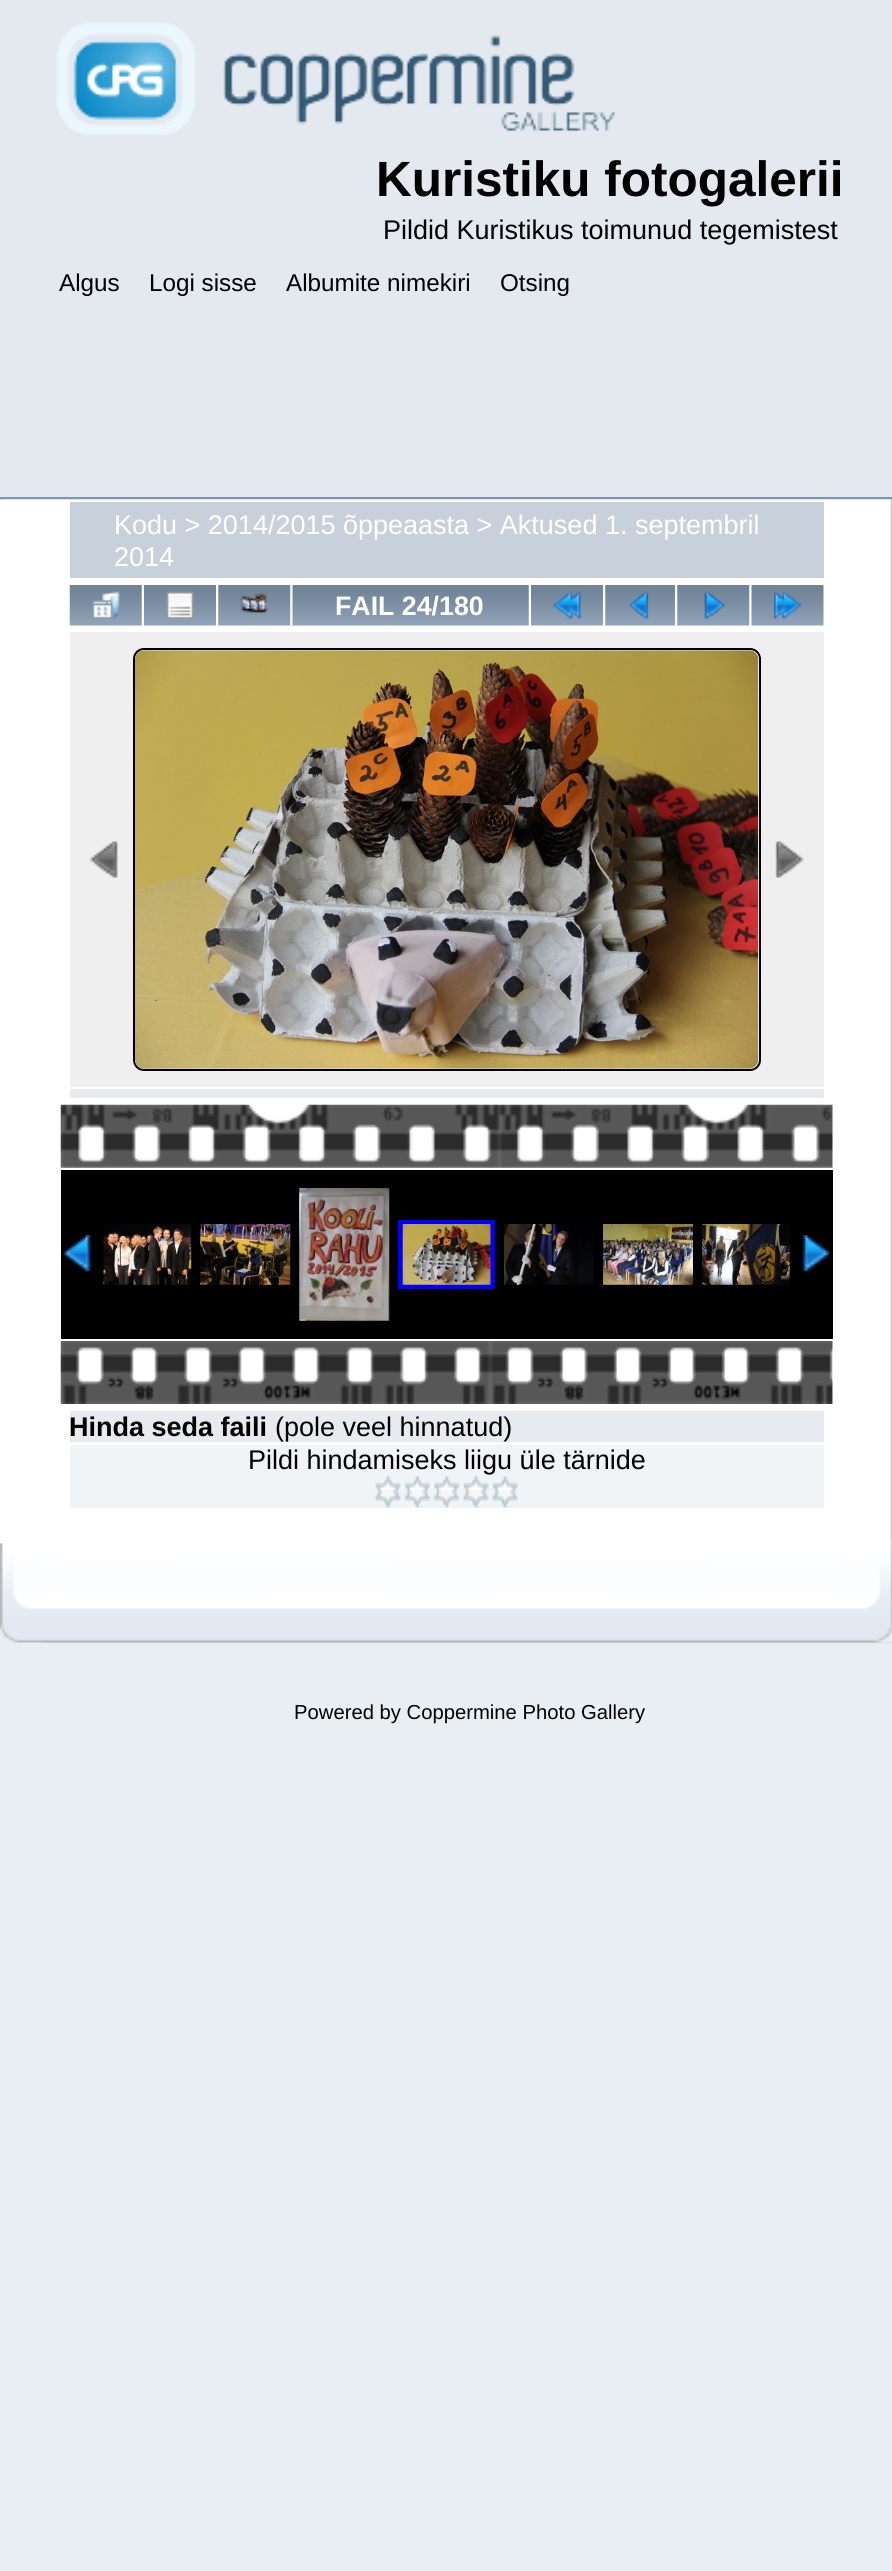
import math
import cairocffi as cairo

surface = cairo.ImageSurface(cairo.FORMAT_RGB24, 892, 2571)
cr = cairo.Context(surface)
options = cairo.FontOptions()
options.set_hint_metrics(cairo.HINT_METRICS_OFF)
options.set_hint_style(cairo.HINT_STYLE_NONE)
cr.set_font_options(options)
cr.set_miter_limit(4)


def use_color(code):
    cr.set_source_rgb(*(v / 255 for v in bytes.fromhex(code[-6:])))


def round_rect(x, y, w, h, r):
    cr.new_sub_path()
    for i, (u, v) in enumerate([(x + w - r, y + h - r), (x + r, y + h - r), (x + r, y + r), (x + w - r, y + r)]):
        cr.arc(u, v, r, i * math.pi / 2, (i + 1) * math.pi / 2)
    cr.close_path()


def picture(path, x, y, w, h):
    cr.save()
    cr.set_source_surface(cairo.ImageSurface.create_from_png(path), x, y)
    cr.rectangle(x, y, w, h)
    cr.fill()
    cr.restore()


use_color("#e9eef2")
cr.paint()
picture("img1.png", 0, 497, 892, 3)
use_color("#e3e9ef")
cr.rectangle(0, 0, 892, 497)
cr.fill()
picture("img2.png", 56, 22, 559, 113)
cr.select_font_face("Liberation Sans", cairo.FONT_SLANT_NORMAL, cairo.FONT_WEIGHT_BOLD)
cr.set_font_size(49.5)
use_color("#000000")
cr.move_to(376, 196)
cr.show_text("Kuristiku fotogalerii")
cr.select_font_face("Liberation Sans")
cr.set_font_size(27)
cr.move_to(383, 239)
cr.show_text("Pildid Kuristikus toimunud tegemistest")
cr.set_font_size(24.25)
cr.move_to(59, 291)
cr.show_text("Algus")
cr.move_to(149, 291)
cr.show_text("Logi sisse")
cr.move_to(286, 291)
cr.show_text("Albumite nimekiri")
cr.move_to(500, 291)
cr.show_text("Otsing")
picture("img3.png", 0, 499, 892, 1045)
picture("img4.png", 0, 499, 892, 1045)
use_color("#c7d0db")
cr.rectangle(70, 502, 754, 76)
cr.fill()
cr.set_font_size(27)
use_color("#ffffff")
cr.move_to(114, 534)
cr.show_text("Kodu > 2014/2015 õppeaasta > Aktused 1. septembril")
cr.move_to(114, 566)
cr.show_text("2014")
picture("img5.png", 69, 585, 73, 41)
picture("img6.png", 92, 591, 28, 28)
picture("img7.png", 144, 585, 72, 41)
picture("img8.png", 166, 591, 28, 28)
picture("img9.png", 218, 585, 73, 41)
picture("img10.png", 240, 593, 28, 21)
picture("img11.png", 292, 585, 237, 41)
cr.select_font_face("Liberation Sans", cairo.FONT_SLANT_NORMAL, cairo.FONT_WEIGHT_BOLD)
cr.set_font_size(26.75)
cr.move_to(335, 615)
cr.show_text("FAIL 24/180")
picture("img7.png", 531, 585, 72, 41)
picture("img12.png", 553, 591, 28, 28)
picture("img13.png", 605, 585, 70, 41)
picture("img14.png", 629, 591, 20, 28)
picture("img9.png", 677, 585, 73, 41)
picture("img15.png", 704, 591, 22, 28)
picture("img16.png", 751, 585, 73, 41)
picture("img17.png", 774, 591, 27, 28)
use_color("#efefef")
cr.rectangle(70, 632, 754, 455)
cr.fill()
picture("img18.png", 89, 841, 29, 37)
round_rect(134, 649, 626, 421, 10)
use_color("#000000")
cr.stroke()
picture("img19.png", 135, 650, 624, 419)
picture("img20.png", 775, 841, 29, 37)
use_color("#e7eaef")
cr.rectangle(70, 1089, 754, 9)
cr.fill()
picture("img21.png", 60, 1104, 773, 64)
use_color("#000000")
cr.rectangle(61, 1170, 772, 169)
cr.fill()
picture("img22.png", 62, 1235, 29, 37)
picture("img23.png", 103, 1224, 89, 61)
picture("img24.png", 200, 1224, 91, 61)
picture("img25.png", 299, 1188, 91, 133)
cr.rectangle(400.5, 1222.5, 92, 64)
use_color("#0000ff")
cr.set_line_width(5)
cr.stroke()
picture("img26.png", 402, 1224, 89, 61)
picture("img27.png", 504, 1224, 90, 61)
picture("img28.png", 603, 1224, 90, 61)
picture("img29.png", 702, 1224, 88, 61)
picture("img30.png", 802, 1235, 29, 37)
picture("img31.png", 60, 1341, 773, 63)
use_color("#e7eaef")
cr.rectangle(70, 1411, 754, 31)
cr.fill()
cr.set_font_size(27)
use_color("#000000")
cr.move_to(69, 1436)
cr.show_text("Hinda seda faili")
cr.select_font_face("Liberation Sans")
cr.move_to(275, 1436)
cr.show_text("(pole veel hinnatud)")
use_color("#f0f4f7")
cr.rectangle(70, 1445, 754, 63)
cr.fill()
use_color("#000000")
cr.move_to(248, 1469)
cr.show_text("Pildi hindamiseks liigu üle tärnide")
picture("img32.png", 373, 1476, 30, 32)
picture("img33.png", 403, 1476, 29, 32)
picture("img34.png", 432, 1476, 29, 32)
picture("img35.png", 461, 1476, 29, 32)
picture("img36.png", 490, 1476, 30, 32)
picture("img37.png", 0, 1543, 892, 100)
picture("img38.png", 45, 1543, 847, 100)
cr.set_font_size(20.25)
cr.move_to(294, 1719)
cr.show_text("Powered by Coppermine Photo Gallery")
surface.write_to_png("result.png")
